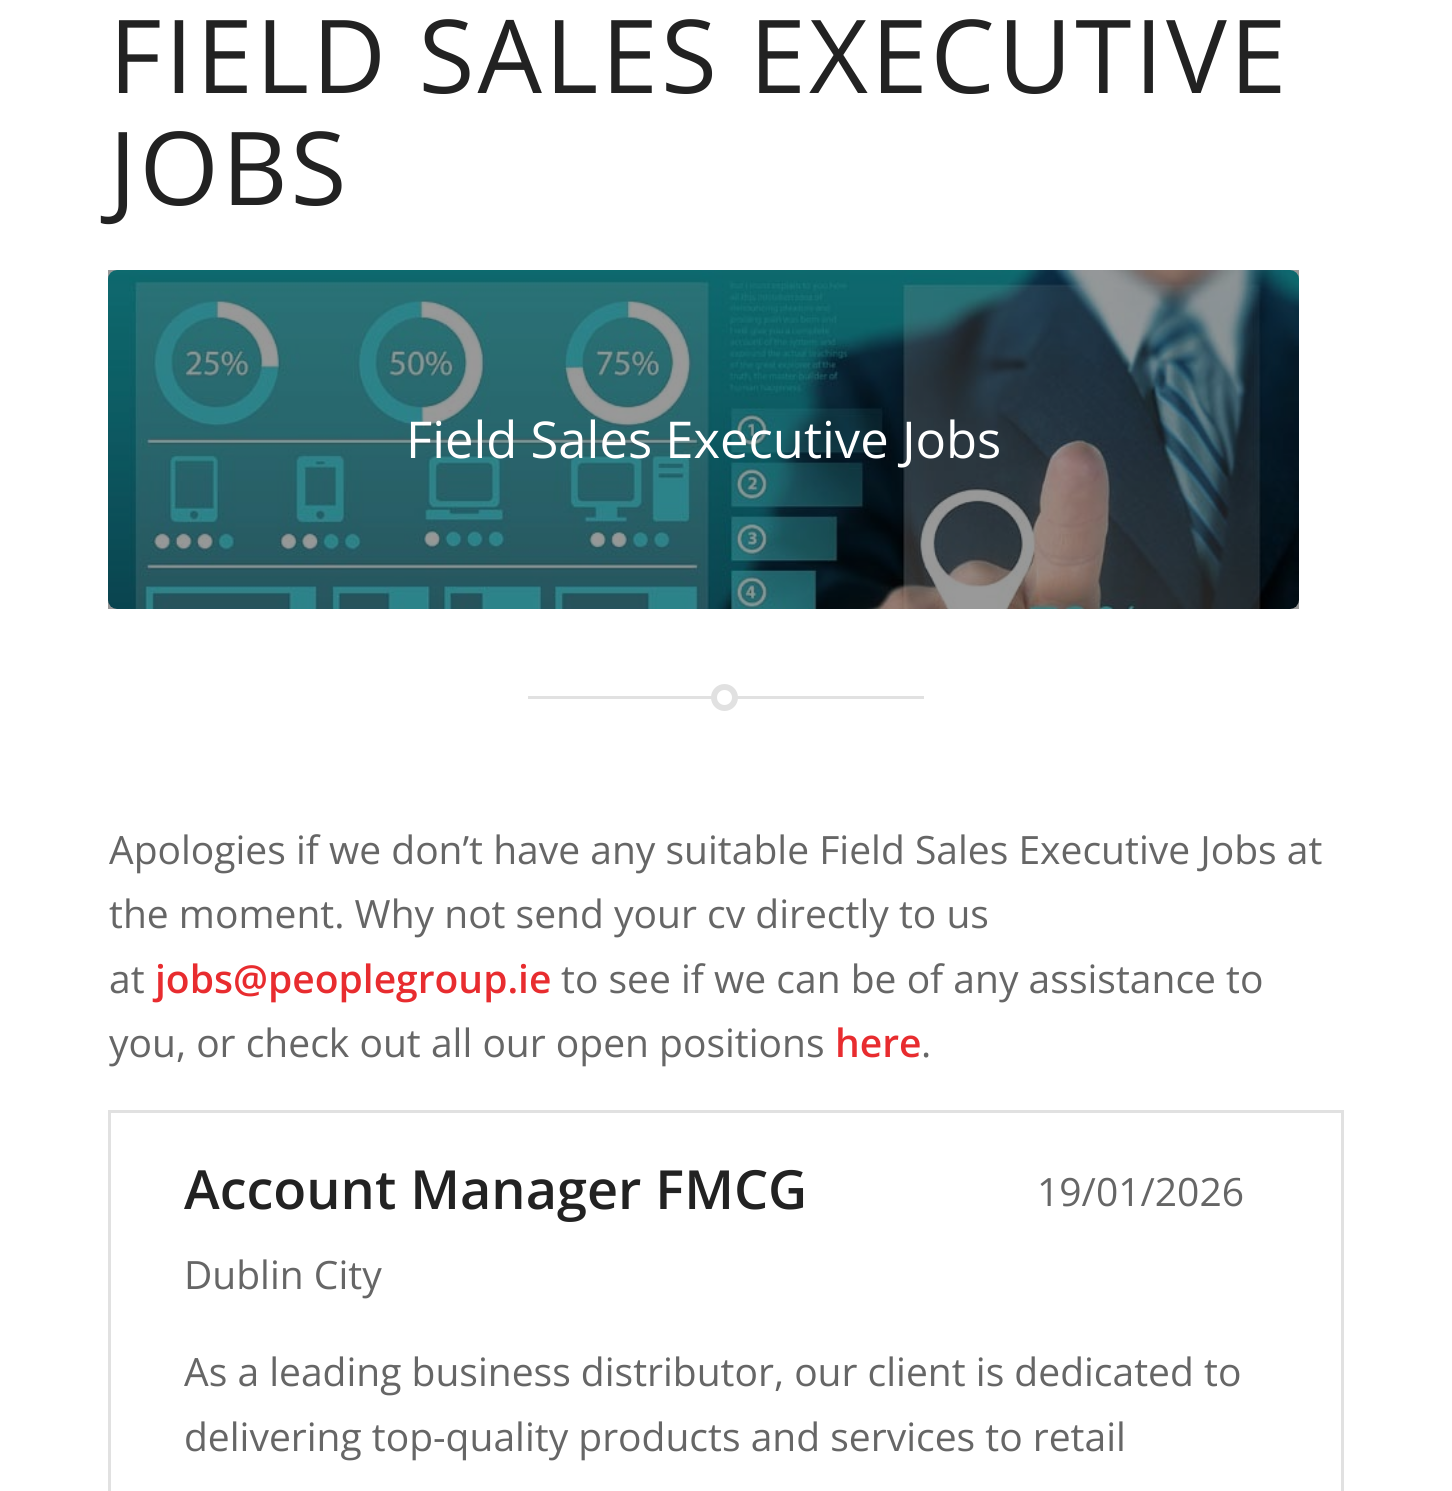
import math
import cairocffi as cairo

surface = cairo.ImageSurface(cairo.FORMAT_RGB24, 1452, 1491)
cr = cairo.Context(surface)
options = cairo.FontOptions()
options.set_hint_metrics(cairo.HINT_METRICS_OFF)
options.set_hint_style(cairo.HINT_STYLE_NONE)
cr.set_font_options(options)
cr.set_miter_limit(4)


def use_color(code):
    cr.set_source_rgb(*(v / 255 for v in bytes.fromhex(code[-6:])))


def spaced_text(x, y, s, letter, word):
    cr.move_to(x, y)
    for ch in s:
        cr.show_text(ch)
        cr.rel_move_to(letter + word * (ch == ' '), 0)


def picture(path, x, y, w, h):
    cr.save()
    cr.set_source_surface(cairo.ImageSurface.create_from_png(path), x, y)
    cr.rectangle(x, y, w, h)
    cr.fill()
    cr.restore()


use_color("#ffffff")
cr.paint()
use_color("#999999")
cr.rectangle(108, 270, 1191, 339)
cr.fill()
cr.select_font_face("Open Sans")
cr.set_font_size(102)
use_color("#222222")
spaced_text(109, 93, "FIELD SALES EXECUTIVE", 3, 0)
spaced_text(109, 205, "JOBS", 3, 0)
picture("img1.png", 108, 270, 1191, 339)
cr.set_font_size(50.75)
use_color("#ffffff")
cr.move_to(406, 458)
cr.show_text("Field Sales Executive Jobs")
use_color("#e1e1e1")
cr.rectangle(528, 696, 396, 3)
cr.fill()
use_color("#ffffff")
cr.arc(724.5, 697.5, 10.5, 0, 2 * math.pi)
cr.fill_preserve()
use_color("#e1e1e1")
cr.set_line_width(6)
cr.stroke()
cr.set_font_size(39)
use_color("#666666")
cr.move_to(109, 864)
cr.show_text("Apologies if we don’t have any suitable Field Sales Executive Jobs at")
cr.move_to(109, 928)
cr.show_text("the moment. Why not send your cv directly to us")
cr.move_to(109, 993)
cr.show_text("at")
cr.select_font_face("Open Sans SemiBold")
use_color("#e82c2f")
cr.move_to(155, 993)
cr.show_text("jobs@peoplegroup.ie")
cr.select_font_face("Open Sans")
use_color("#666666")
cr.move_to(561, 993)
cr.show_text("to see if we can be of any assistance to")
cr.move_to(109, 1057)
cr.show_text("you, or check out all our open positions")
cr.select_font_face("Open Sans SemiBold")
use_color("#e82c2f")
cr.move_to(835, 1057)
cr.show_text("here")
cr.select_font_face("Open Sans")
use_color("#666666")
cr.move_to(921, 1057)
cr.show_text(".")
cr.rectangle(109.5, 1111.5, 1233, 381)
use_color("#e1e1e1")
cr.set_line_width(3)
cr.stroke()
cr.select_font_face("Open Sans SemiBold")
cr.set_font_size(54)
use_color("#222222")
cr.move_to(184, 1209)
cr.show_text("Account Manager FMCG")
cr.select_font_face("Open Sans")
cr.set_font_size(39)
use_color("#666666")
cr.move_to(1037, 1206)
cr.show_text("19/01/2026")
cr.move_to(184, 1289)
cr.show_text("Dublin City")
cr.move_to(184, 1386)
cr.show_text("As a leading business distributor, our client is dedicated to")
cr.move_to(184, 1451)
cr.show_text("delivering top-quality products and services to retail")
surface.write_to_png("result.png")
